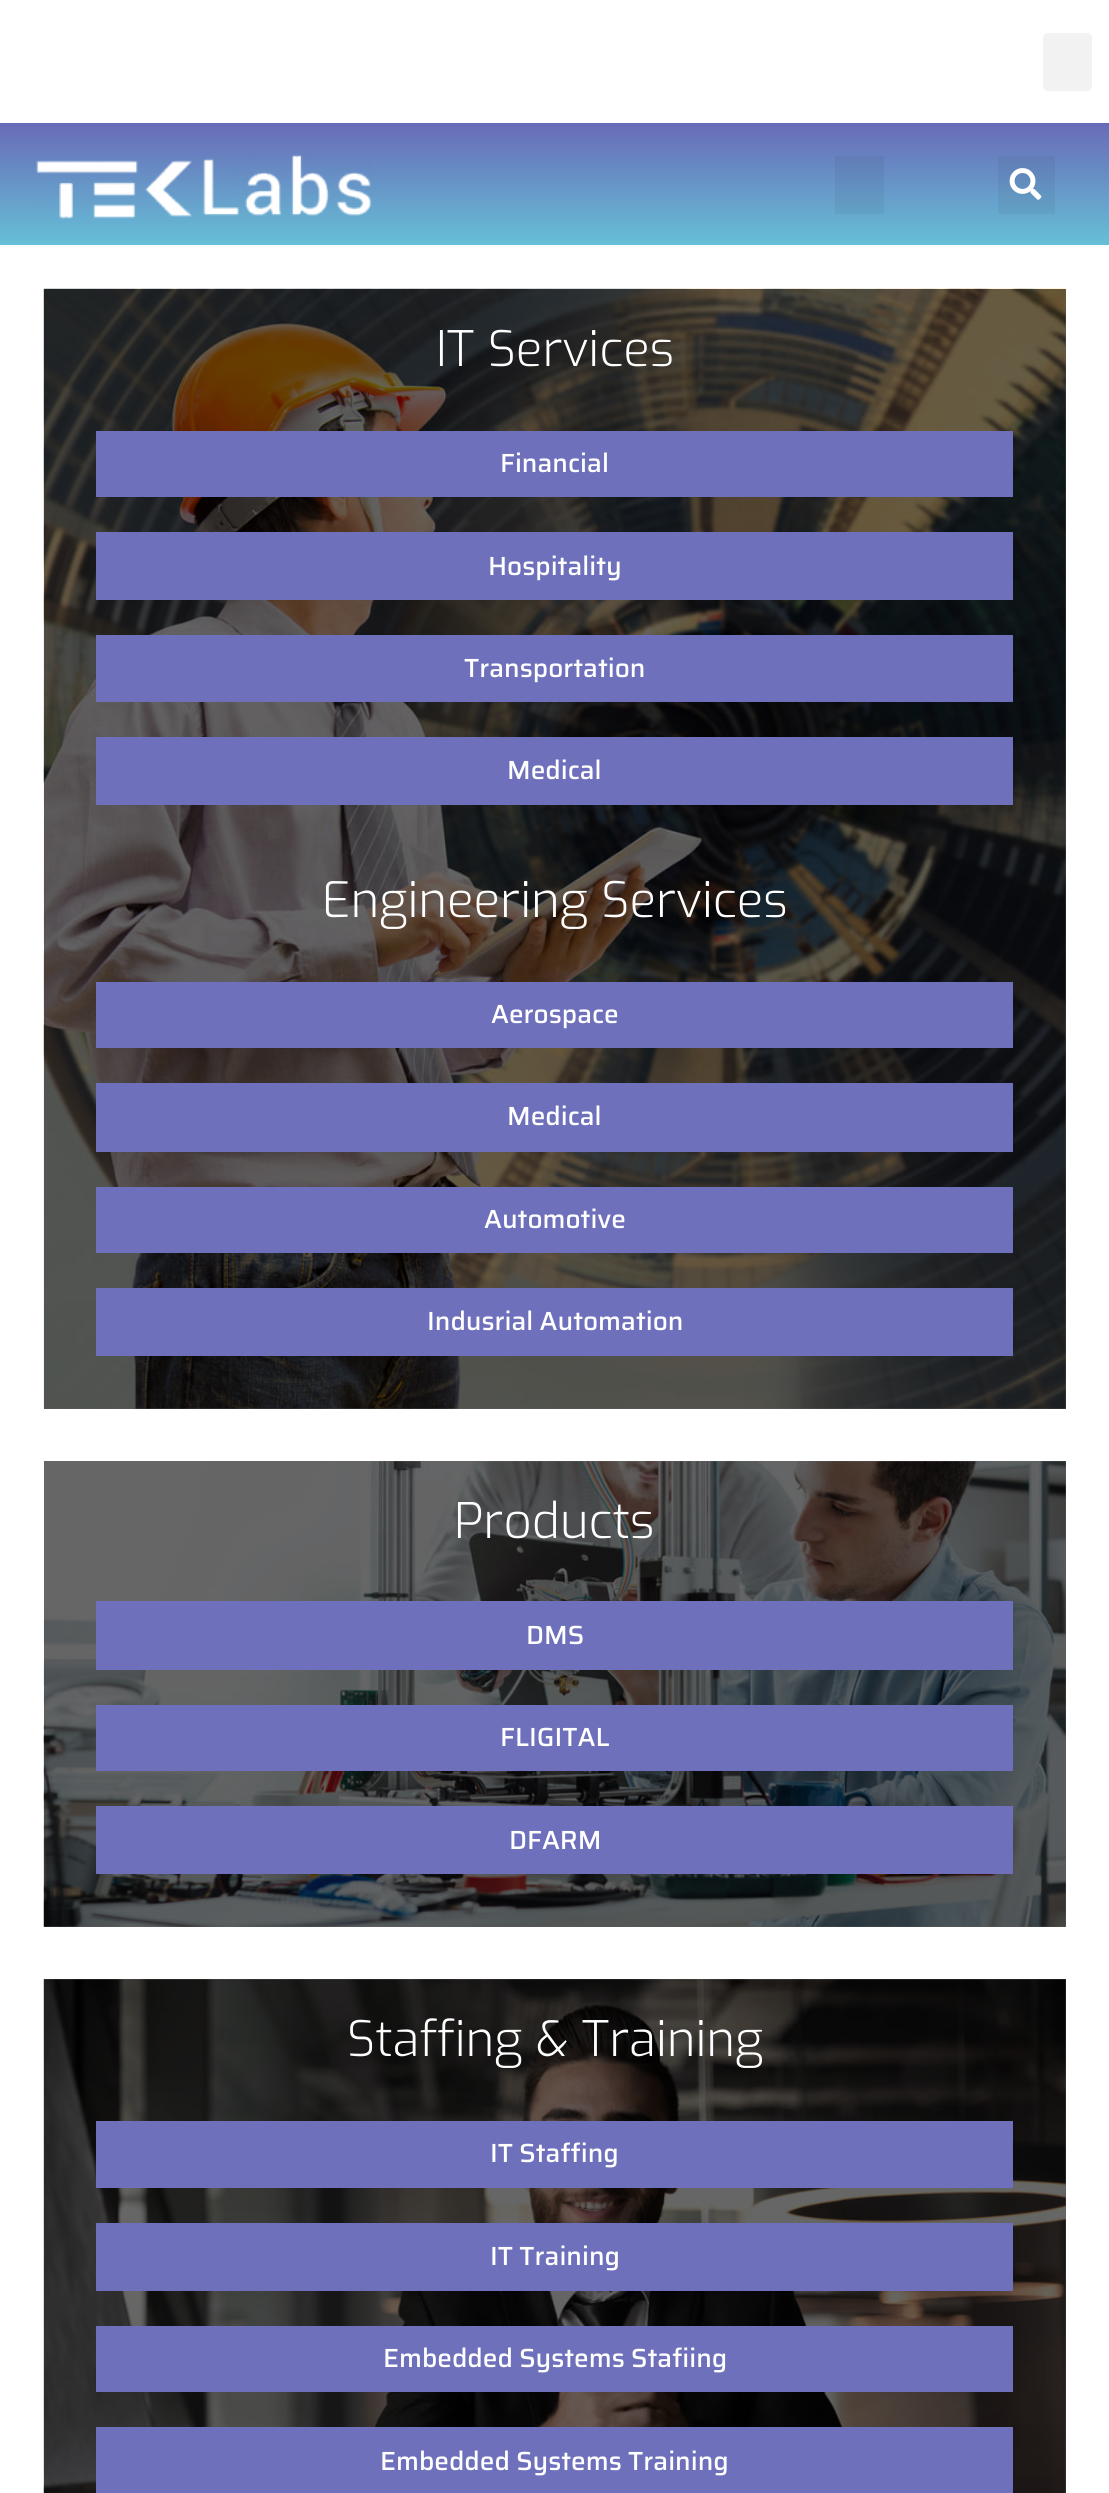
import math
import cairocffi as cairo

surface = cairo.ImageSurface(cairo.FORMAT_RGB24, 1109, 2493)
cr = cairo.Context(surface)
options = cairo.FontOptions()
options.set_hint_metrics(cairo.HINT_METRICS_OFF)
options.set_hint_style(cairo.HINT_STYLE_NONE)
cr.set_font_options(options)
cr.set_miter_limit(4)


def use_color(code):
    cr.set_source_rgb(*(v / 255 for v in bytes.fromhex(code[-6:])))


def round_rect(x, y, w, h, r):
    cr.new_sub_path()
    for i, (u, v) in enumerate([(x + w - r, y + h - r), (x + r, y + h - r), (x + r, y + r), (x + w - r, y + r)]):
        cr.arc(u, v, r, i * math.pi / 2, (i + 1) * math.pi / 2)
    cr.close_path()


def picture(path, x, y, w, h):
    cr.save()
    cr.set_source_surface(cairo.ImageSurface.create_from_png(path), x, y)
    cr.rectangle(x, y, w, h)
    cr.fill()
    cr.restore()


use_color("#ffffff")
cr.paint()
use_color("#666666")
cr.rectangle(44, 1979, 1022, 514)
cr.fill()
cr.rectangle(44, 1461, 1022, 466)
cr.fill()
cr.rectangle(44, 289, 1022, 1120)
cr.fill()
use_color("#f2f2f2")
round_rect(1043, 33, 49, 58, 5)
cr.fill()
gradient = cairo.LinearGradient(555, 122, 555, 245)
gradient.add_color_stop_rgba(0, 0.408, 0.416, 0.718, 1)
gradient.add_color_stop_rgba(1, 0.4, 0.749, 0.843, 1)
cr.set_source(gradient)
cr.rectangle(0, 123, 1109, 122)
cr.fill()
picture("img1.png", 36, 154, 336, 65)
cr.set_source_rgba(0, 0, 0, 0.05)
cr.rectangle(835, 156, 49, 58)
cr.fill()
cr.rectangle(998, 156, 57, 58)
cr.fill()
picture("img2.png", 1009, 168, 33, 32)
picture("img3.png", 43, 288, 1023, 1121)
cr.select_font_face("Exo Light")
cr.set_font_size(49)
use_color("#ffffff")
cr.move_to(436, 366)
cr.show_text("IT Services")
use_color("#6e70bb")
cr.rectangle(96, 431, 917, 66)
cr.fill()
cr.select_font_face("Saira Medium")
cr.set_font_size(26.25)
use_color("#ffffff")
cr.move_to(500, 472)
cr.show_text("Financial")
use_color("#6e70bb")
cr.rectangle(96, 532, 917, 68)
cr.fill()
use_color("#ffffff")
cr.move_to(488, 575)
cr.show_text("Hospitality")
use_color("#6e70bb")
cr.rectangle(96, 635, 917, 67)
cr.fill()
use_color("#ffffff")
cr.move_to(464, 677)
cr.show_text("Transportation")
use_color("#6e70bb")
cr.rectangle(96, 737, 917, 68)
cr.fill()
use_color("#ffffff")
cr.move_to(507, 779)
cr.show_text("Medical")
cr.select_font_face("Exo Light")
cr.set_font_size(49)
cr.move_to(322, 917)
cr.show_text("Engineering Services")
use_color("#6e70bb")
cr.rectangle(96, 982, 917, 66)
cr.fill()
cr.select_font_face("Saira Medium")
cr.set_font_size(26.25)
use_color("#ffffff")
cr.move_to(491, 1023)
cr.show_text("Aerospace")
use_color("#6e70bb")
cr.rectangle(96, 1083, 917, 69)
cr.fill()
use_color("#ffffff")
cr.move_to(507, 1125)
cr.show_text("Medical")
use_color("#6e70bb")
cr.rectangle(96, 1187, 917, 66)
cr.fill()
use_color("#ffffff")
cr.move_to(484, 1228)
cr.show_text("Automotive")
use_color("#6e70bb")
cr.rectangle(96, 1288, 917, 68)
cr.fill()
use_color("#ffffff")
cr.move_to(427, 1330)
cr.show_text("Indusrial Automation")
picture("img4.png", 43, 1461, 1023, 466)
cr.select_font_face("Exo Light")
cr.set_font_size(49)
cr.move_to(454, 1538)
cr.show_text("Products")
use_color("#6e70bb")
cr.rectangle(96, 1601, 917, 69)
cr.fill()
cr.select_font_face("Saira Medium")
cr.set_font_size(26.25)
use_color("#ffffff")
cr.move_to(526, 1644)
cr.show_text("DMS")
use_color("#6e70bb")
cr.rectangle(96, 1705, 917, 66)
cr.fill()
use_color("#ffffff")
cr.move_to(500, 1746)
cr.show_text("FLIGITAL")
use_color("#6e70bb")
cr.rectangle(96, 1806, 917, 68)
cr.fill()
use_color("#ffffff")
cr.move_to(509, 1849)
cr.show_text("DFARM")
picture("img5.png", 43, 1979, 1023, 514)
cr.select_font_face("Exo Light")
cr.set_font_size(49)
cr.move_to(347, 2056)
cr.show_text("Staffing & Training")
use_color("#6e70bb")
cr.rectangle(96, 2121, 917, 67)
cr.fill()
cr.select_font_face("Saira Medium")
cr.set_font_size(26.25)
use_color("#ffffff")
cr.move_to(490, 2162)
cr.show_text("IT Staffing")
use_color("#6e70bb")
cr.rectangle(96, 2223, 917, 68)
cr.fill()
use_color("#ffffff")
cr.move_to(490, 2265)
cr.show_text("IT Training")
use_color("#6e70bb")
cr.rectangle(96, 2326, 917, 66)
cr.fill()
use_color("#ffffff")
cr.move_to(383, 2367)
cr.show_text("Embedded Systems Stafiing")
use_color("#6e70bb")
cr.rectangle(96, 2427, 917, 66)
cr.fill()
use_color("#ffffff")
cr.move_to(380, 2470)
cr.show_text("Embedded Systems Training")
surface.write_to_png("result.png")
